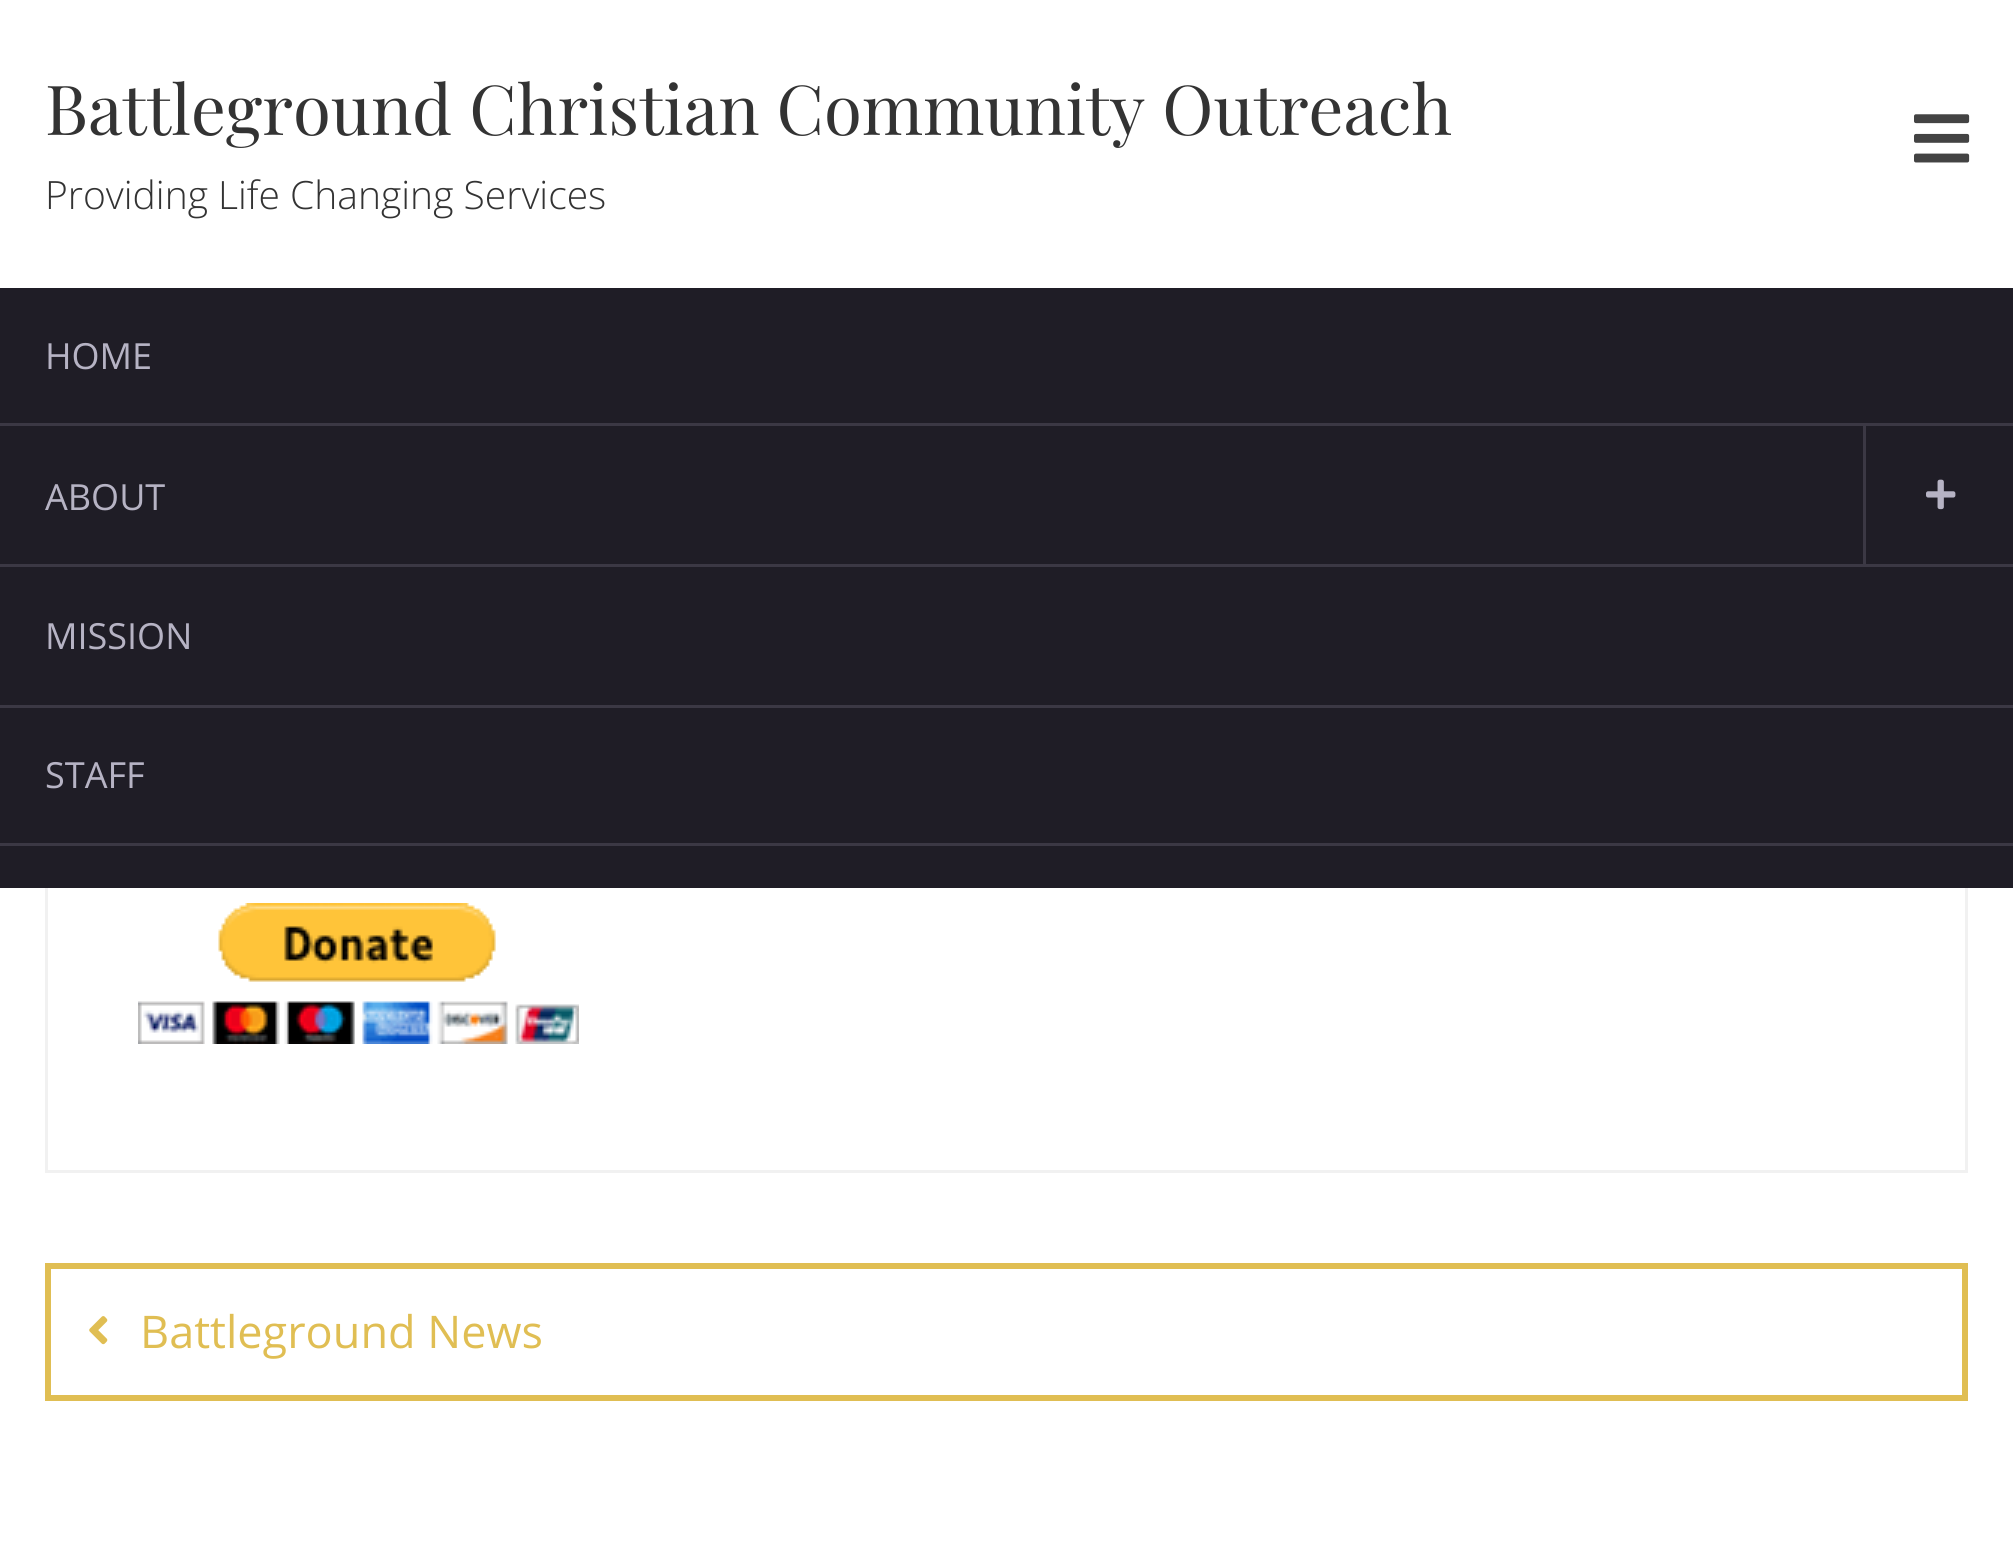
import math
import cairocffi as cairo

surface = cairo.ImageSurface(cairo.FORMAT_RGB24, 2013, 1545)
cr = cairo.Context(surface)
options = cairo.FontOptions()
options.set_hint_metrics(cairo.HINT_METRICS_OFF)
options.set_hint_style(cairo.HINT_STYLE_NONE)
cr.set_font_options(options)
cr.set_miter_limit(4)


def use_color(code):
    cr.set_source_rgb(*(v / 255 for v in bytes.fromhex(code[-6:])))


def picture(path, x, y, w, h):
    cr.save()
    cr.set_source_surface(cairo.ImageSurface.create_from_png(path), x, y)
    cr.rectangle(x, y, w, h)
    cr.fill()
    cr.restore()


use_color("#ffffff")
cr.paint()
cr.select_font_face("Playfair Display")
cr.set_font_size(69)
use_color("#333333")
cr.move_to(45, 135)
cr.show_text("Battleground Christian Community Outreach")
cr.select_font_face("Open Sans Light")
cr.set_font_size(39)
cr.move_to(45, 209)
cr.show_text("Providing Life Changing Services")
picture("img1.png", 1914, 114, 56, 49)
cr.rectangle(46.5, 457.5, 1920, 714)
use_color("#f1f1f1")
cr.set_line_width(3)
cr.stroke()
use_color("#1f1d26")
cr.rectangle(0, 288, 2013, 600)
cr.fill()
use_color("#3b3844")
cr.rectangle(0, 423, 2013, 3)
cr.fill()
cr.select_font_face("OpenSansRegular")
cr.set_font_size(36)
use_color("#b6b3c4")
cr.move_to(45, 369)
cr.show_text("HOME")
use_color("#3b3844")
cr.rectangle(0, 564, 2013, 3)
cr.fill()
use_color("#b6b3c4")
cr.move_to(45, 510)
cr.show_text("ABOUT")
use_color("#3b3844")
cr.rectangle(1863, 426, 3, 138)
cr.fill()
picture("img2.png", 1926, 479, 30, 31)
cr.rectangle(0, 705, 2013, 3)
cr.fill()
use_color("#b6b3c4")
cr.move_to(45, 649)
cr.show_text("MISSION")
use_color("#3b3844")
cr.rectangle(0, 843, 2013, 3)
cr.fill()
use_color("#b6b3c4")
cr.move_to(45, 788)
cr.show_text("STAFF")
picture("img3.png", 138, 903, 441, 141)
cr.rectangle(48, 1266, 1917, 132)
use_color("#e0be53")
cr.set_line_width(6)
cr.stroke()
picture("img4.png", 89, 1316, 19, 29)
cr.set_font_size(45)
cr.move_to(140, 1348)
cr.show_text("Battleground News")
surface.write_to_png("result.png")
